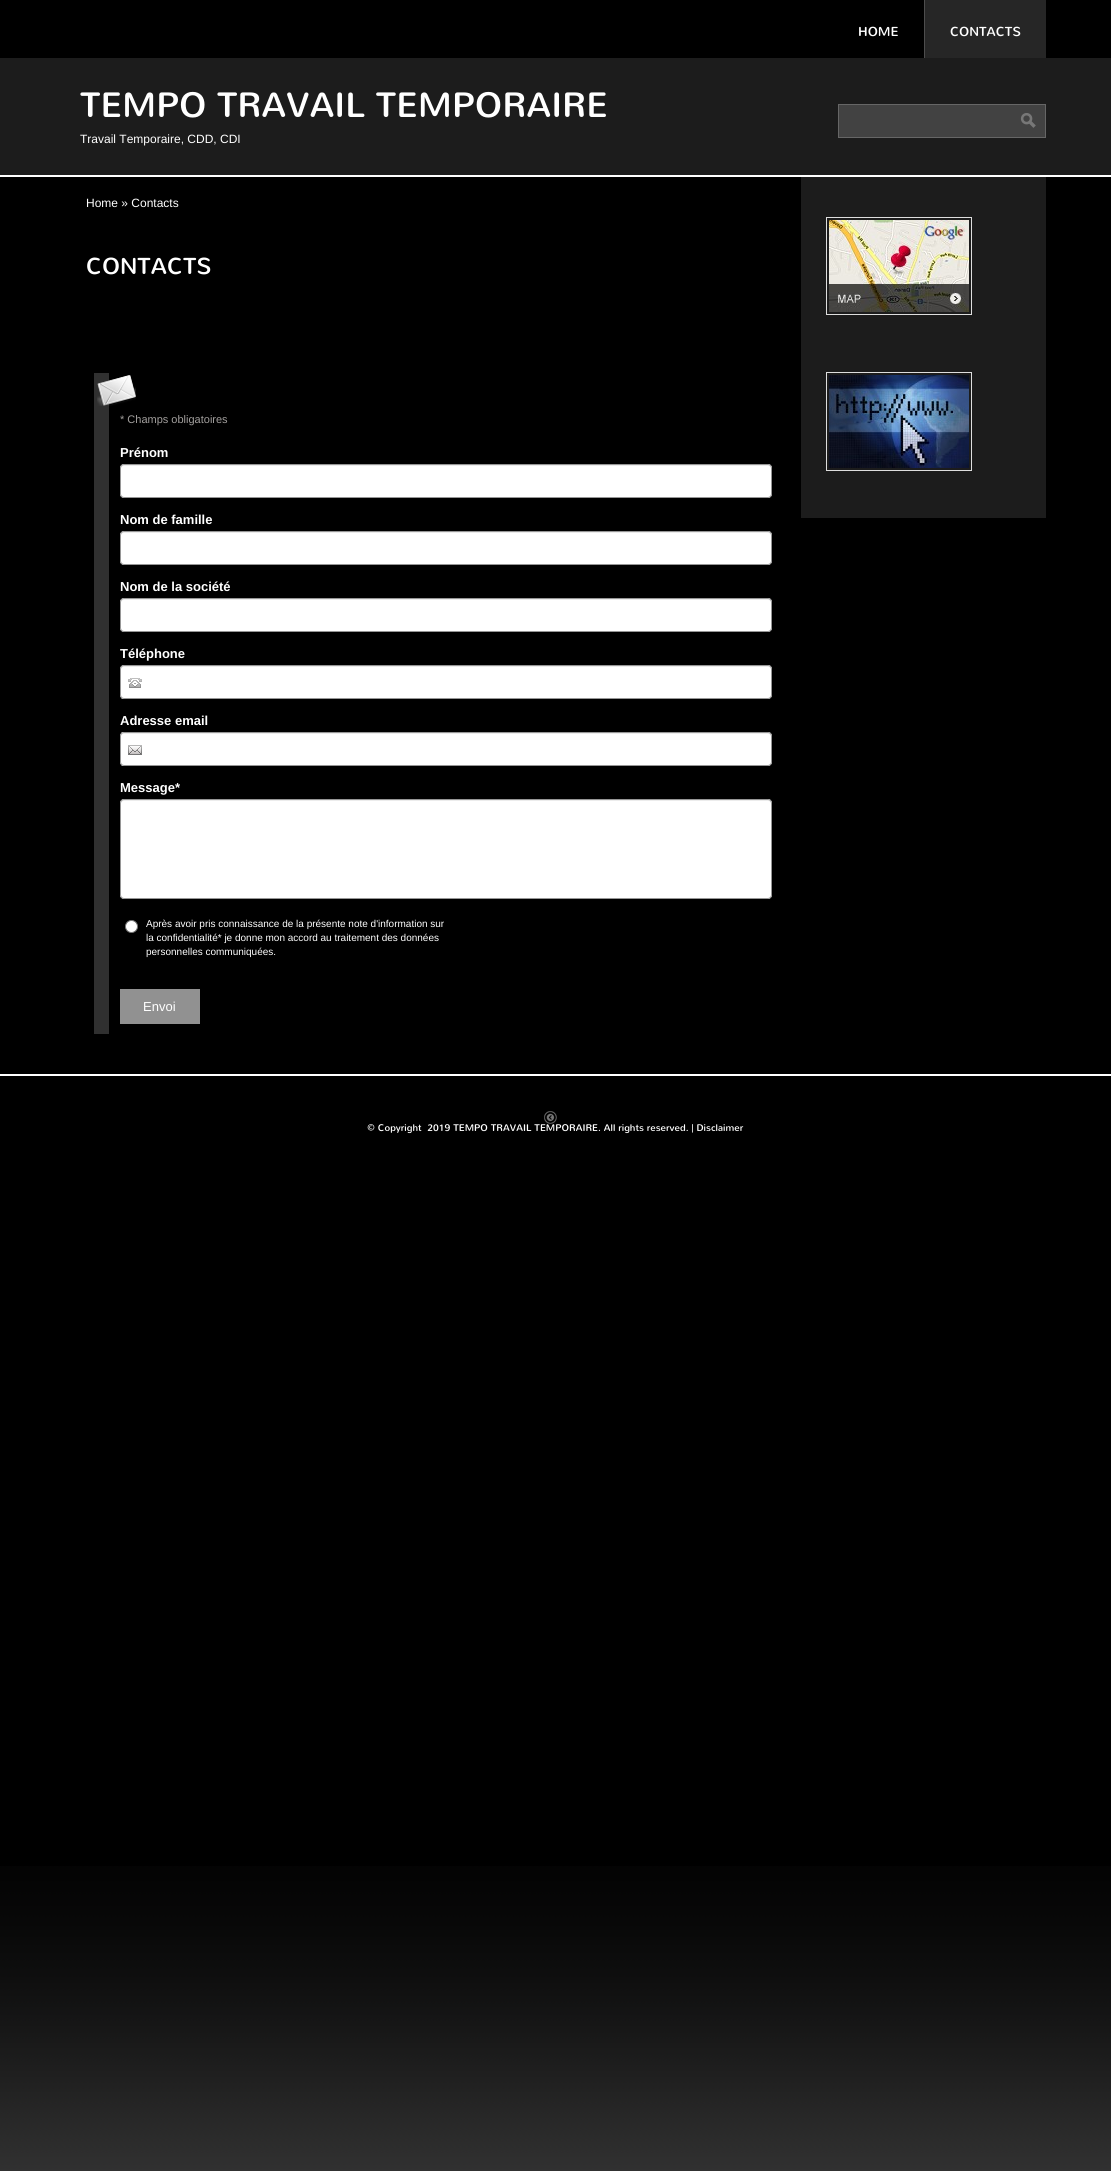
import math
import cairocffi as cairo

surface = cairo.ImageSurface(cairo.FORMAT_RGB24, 1111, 2171)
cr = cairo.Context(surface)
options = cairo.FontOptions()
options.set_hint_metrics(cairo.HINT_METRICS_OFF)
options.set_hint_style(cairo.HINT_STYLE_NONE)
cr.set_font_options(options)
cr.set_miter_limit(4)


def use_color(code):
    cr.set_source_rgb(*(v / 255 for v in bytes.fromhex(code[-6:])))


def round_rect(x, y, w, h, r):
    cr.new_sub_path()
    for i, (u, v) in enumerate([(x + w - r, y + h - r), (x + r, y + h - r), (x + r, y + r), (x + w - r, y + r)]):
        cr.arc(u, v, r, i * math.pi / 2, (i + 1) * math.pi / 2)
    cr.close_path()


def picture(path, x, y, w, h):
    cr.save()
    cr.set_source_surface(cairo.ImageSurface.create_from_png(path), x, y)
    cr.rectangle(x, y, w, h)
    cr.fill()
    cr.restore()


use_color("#000000")
cr.paint()
use_color("#4d4d4d")
cr.rectangle(924, 0, 1, 58)
cr.fill()
cr.select_font_face("Nunito")
cr.set_font_size(13)
use_color("#ffffff")
cr.move_to(858, 36)
cr.show_text("HOME")
use_color("#262626")
cr.rectangle(925, 0, 121, 58)
cr.fill()
use_color("#ffffff")
cr.move_to(950, 36)
cr.show_text("CONTACTS")
use_color("#1c1c1c")
cr.rectangle(0, 58, 1111, 117)
cr.fill()
cr.set_font_size(35)
use_color("#ffffff")
cr.move_to(80, 117)
cr.show_text("TEMPO TRAVAIL TEMPORAIRE")
cr.select_font_face("Liberation Sans")
cr.set_font_size(12)
cr.move_to(80, 143)
cr.show_text("Travail Temporaire, CDD, CDI")
use_color("#424242")
cr.rectangle(838.5, 104.5, 207, 33)
cr.fill_preserve()
use_color("#666666")
cr.set_line_width(1)
cr.stroke()
picture("img1.png", 1020, 113, 16, 15)
use_color("#ffffff")
cr.rectangle(0, 175, 1111, 2)
cr.fill()
cr.move_to(86, 207)
cr.show_text("Home » Contacts")
cr.select_font_face("Nunito")
cr.set_font_size(23)
cr.move_to(86, 274)
cr.show_text("CONTACTS")
use_color("#303030")
cr.rectangle(94, 373, 15, 661)
cr.fill()
picture("img2.png", 97, 375, 39, 31)
cr.select_font_face("Liberation Sans")
cr.set_font_size(11)
use_color("#a29f9d")
cr.move_to(120, 423)
cr.show_text("* Champs obligatoires")
cr.select_font_face("Liberation Sans", cairo.FONT_SLANT_NORMAL, cairo.FONT_WEIGHT_BOLD)
cr.set_font_size(13)
use_color("#ffffff")
cr.move_to(120, 457)
cr.show_text("Prénom")
round_rect(120, 464, 652, 34, 4)
cr.fill()
use_color("#ececec")
cr.new_path()
cr.move_to(124, 466)
cr.line_to(768, 466)
cr.curve_to(770, 466, 771, 467, 771, 469)
cr.line_to(771, 468)
cr.curve_to(771, 466, 770, 465, 768, 465)
cr.line_to(124, 465)
cr.curve_to(122, 465, 121, 466, 121, 468)
cr.line_to(121, 469)
cr.curve_to(121, 467, 122, 466, 124, 466)
cr.close_path()
cr.fill()
round_rect(120.5, 464.5, 651, 33, 3.5)
use_color("#969696")
cr.stroke()
use_color("#ffffff")
cr.move_to(120, 524)
cr.show_text("Nom de famille")
round_rect(120, 531, 652, 34, 4)
cr.fill()
use_color("#ececec")
cr.new_path()
cr.move_to(124, 533)
cr.line_to(768, 533)
cr.curve_to(770, 533, 771, 534, 771, 536)
cr.line_to(771, 535)
cr.curve_to(771, 533, 770, 532, 768, 532)
cr.line_to(124, 532)
cr.curve_to(122, 532, 121, 533, 121, 535)
cr.line_to(121, 536)
cr.curve_to(121, 534, 122, 533, 124, 533)
cr.close_path()
cr.fill()
round_rect(120.5, 531.5, 651, 33, 3.5)
use_color("#969696")
cr.stroke()
use_color("#ffffff")
cr.move_to(120, 591)
cr.show_text("Nom de la société")
round_rect(120, 598, 652, 34, 4)
cr.fill()
use_color("#ececec")
cr.new_path()
cr.move_to(124, 600)
cr.line_to(768, 600)
cr.curve_to(770, 600, 771, 601, 771, 603)
cr.line_to(771, 602)
cr.curve_to(771, 600, 770, 599, 768, 599)
cr.line_to(124, 599)
cr.curve_to(122, 599, 121, 600, 121, 602)
cr.line_to(121, 603)
cr.curve_to(121, 601, 122, 600, 124, 600)
cr.close_path()
cr.fill()
round_rect(120.5, 598.5, 651, 33, 3.5)
use_color("#969696")
cr.stroke()
use_color("#ffffff")
cr.move_to(120, 658)
cr.show_text("Téléphone")
round_rect(120, 665, 652, 34, 4)
cr.fill()
picture("img3.png", 121, 666, 21, 33)
use_color("#ececec")
cr.new_path()
cr.move_to(124, 667)
cr.line_to(768, 667)
cr.curve_to(770, 667, 771, 668, 771, 670)
cr.line_to(771, 669)
cr.curve_to(771, 667, 770, 666, 768, 666)
cr.line_to(124, 666)
cr.curve_to(122, 666, 121, 667, 121, 669)
cr.line_to(121, 670)
cr.curve_to(121, 668, 122, 667, 124, 667)
cr.close_path()
cr.fill()
round_rect(120.5, 665.5, 651, 33, 3.5)
use_color("#969696")
cr.stroke()
use_color("#ffffff")
cr.move_to(120, 725)
cr.show_text("Adresse email")
round_rect(120, 732, 652, 34, 4)
cr.fill()
picture("img4.png", 121, 732, 21, 34)
use_color("#ececec")
cr.new_path()
cr.move_to(124, 734)
cr.line_to(768, 734)
cr.curve_to(770, 734, 771, 735, 771, 737)
cr.line_to(771, 736)
cr.curve_to(771, 734, 770, 733, 768, 733)
cr.line_to(124, 733)
cr.curve_to(122, 733, 121, 734, 121, 736)
cr.line_to(121, 737)
cr.curve_to(121, 735, 122, 734, 124, 734)
cr.close_path()
cr.fill()
round_rect(120.5, 732.5, 651, 33, 3.5)
use_color("#969696")
cr.stroke()
use_color("#ffffff")
cr.move_to(120, 792)
cr.show_text("Message*")
round_rect(120, 799, 652, 100, 4)
cr.fill()
use_color("#ececec")
cr.new_path()
cr.move_to(124, 801)
cr.line_to(768, 801)
cr.curve_to(770, 801, 771, 802, 771, 804)
cr.line_to(771, 803)
cr.curve_to(771, 801, 770, 800, 768, 800)
cr.line_to(124, 800)
cr.curve_to(122, 800, 121, 801, 121, 803)
cr.line_to(121, 804)
cr.curve_to(121, 802, 122, 801, 124, 801)
cr.close_path()
cr.fill()
round_rect(120.5, 799.5, 651, 99, 3.5)
use_color("#969696")
cr.stroke()
use_color("#ffffff")
cr.arc(131.5, 926.5, 6, 0, 2 * math.pi)
cr.fill_preserve()
use_color("#767676")
cr.stroke()
cr.select_font_face("Liberation Sans")
cr.set_font_size(10)
use_color("#ffffff")
cr.move_to(146, 927)
cr.show_text("Après avoir pris connaissance de la présente note d'information sur")
cr.move_to(146, 941)
cr.show_text("la confidentialité* je donne mon accord au traitement des données")
cr.move_to(146, 955)
cr.show_text("personnelles communiquées.")
use_color("#919191")
cr.rectangle(120, 989, 80, 35)
cr.fill()
cr.set_font_size(13)
use_color("#ffffff")
cr.move_to(143, 1011)
cr.show_text("Envoi")
use_color("#1c1c1c")
cr.rectangle(801, 177, 245, 341)
cr.fill()
cr.rectangle(826.5, 217.5, 145, 97)
use_color("#dedede")
cr.stroke()
picture("img5.png", 829, 220, 140, 92)
cr.rectangle(826.5, 372.5, 145, 98)
cr.stroke()
picture("img6.png", 829, 375, 140, 93)
use_color("#ffffff")
cr.rectangle(0, 1074, 1111, 2)
cr.fill()
picture("img7.png", 544, 1111, 13, 13)
cr.select_font_face("Nunito")
cr.set_font_size(9.6)
cr.move_to(367, 1131)
cr.show_text("© Copyright  2019 TEMPO TRAVAIL TEMPORAIRE. All rights reserved. | Disclaimer")
picture("img8.png", 0, 1866, 1111, 305)
surface.write_to_png("result.png")
